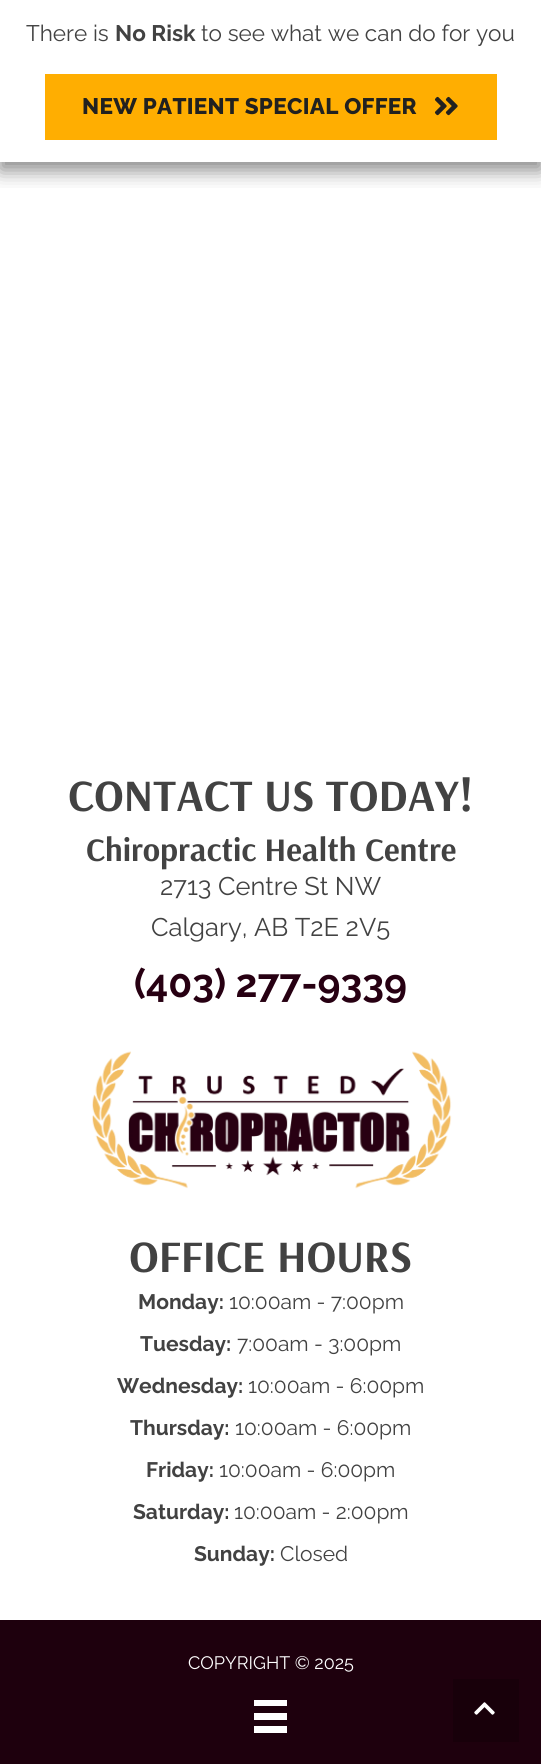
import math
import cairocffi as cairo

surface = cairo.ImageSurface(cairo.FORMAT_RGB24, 541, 1764)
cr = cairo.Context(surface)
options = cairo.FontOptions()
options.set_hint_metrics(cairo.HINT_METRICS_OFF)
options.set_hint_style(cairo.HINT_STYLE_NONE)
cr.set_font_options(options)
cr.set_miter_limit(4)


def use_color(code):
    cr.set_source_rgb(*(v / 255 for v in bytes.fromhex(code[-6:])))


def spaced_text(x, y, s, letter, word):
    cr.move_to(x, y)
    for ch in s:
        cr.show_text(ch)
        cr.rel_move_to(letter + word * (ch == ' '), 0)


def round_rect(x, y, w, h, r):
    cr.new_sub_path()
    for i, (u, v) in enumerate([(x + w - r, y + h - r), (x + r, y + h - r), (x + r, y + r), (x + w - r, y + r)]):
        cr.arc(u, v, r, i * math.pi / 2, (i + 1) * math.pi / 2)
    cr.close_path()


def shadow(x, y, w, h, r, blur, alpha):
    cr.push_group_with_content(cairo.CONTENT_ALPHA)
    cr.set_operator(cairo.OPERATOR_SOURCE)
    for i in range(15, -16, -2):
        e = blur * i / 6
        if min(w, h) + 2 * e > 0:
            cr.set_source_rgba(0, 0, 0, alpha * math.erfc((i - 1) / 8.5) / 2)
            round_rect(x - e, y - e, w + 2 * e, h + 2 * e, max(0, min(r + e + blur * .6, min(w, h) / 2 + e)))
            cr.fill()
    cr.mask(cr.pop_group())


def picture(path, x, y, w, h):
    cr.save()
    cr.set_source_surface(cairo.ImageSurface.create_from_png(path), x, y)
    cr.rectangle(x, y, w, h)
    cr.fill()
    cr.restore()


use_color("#ffffff")
cr.paint()
cr.save()
cr.rectangle(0, 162, 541, 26)
cr.clip()
use_color("#131313")
shadow(0, 8, 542, 162, 0, 10, 0.52)
cr.restore()
cr.select_font_face("Raleway")
cr.set_font_size(22.5)
use_color("#424242")
cr.move_to(26, 41)
cr.show_text("There is")
cr.select_font_face("Raleway", cairo.FONT_SLANT_NORMAL, cairo.FONT_WEIGHT_BOLD)
cr.move_to(115, 41)
cr.show_text("No Risk")
cr.select_font_face("Raleway")
cr.move_to(201, 41)
cr.show_text("to see what we can do for you")
use_color("#ffae01")
cr.rectangle(45, 74, 452, 66)
cr.fill()
cr.select_font_face("Raleway ExtraBold")
use_color("#212120")
spaced_text(82, 114, "NEW PATIENT SPECIAL OFFER", 0.3, 0)
picture("img1.png", 434, 96, 24, 20)
cr.select_font_face("Arsenal", cairo.FONT_SLANT_NORMAL, cairo.FONT_WEIGHT_BOLD)
cr.set_font_size(45)
use_color("#424242")
cr.move_to(68, 811)
cr.show_text("CONTACT US TODAY!")
cr.set_font_size(33)
cr.move_to(86, 861)
cr.show_text("Chiropractic Health Centre")
cr.select_font_face("Raleway")
cr.set_font_size(25.5)
cr.move_to(160, 895)
cr.show_text("2713 Centre St NW")
cr.move_to(151, 936)
cr.show_text("Calgary, AB T2E 2V5")
cr.select_font_face("Raleway", cairo.FONT_SLANT_NORMAL, cairo.FONT_WEIGHT_BOLD)
cr.set_font_size(39)
use_color("#270012")
cr.move_to(134, 997)
cr.show_text("(403) 277-9339")
picture("img2.png", 92, 1051, 360, 138)
cr.select_font_face("Arsenal", cairo.FONT_SLANT_NORMAL, cairo.FONT_WEIGHT_BOLD)
cr.set_font_size(45)
use_color("#424242")
cr.move_to(129, 1272)
cr.show_text("OFFICE HOURS")
cr.select_font_face("Raleway", cairo.FONT_SLANT_NORMAL, cairo.FONT_WEIGHT_BOLD)
cr.set_font_size(21)
cr.move_to(138, 1309)
cr.show_text("Monday:")
cr.select_font_face("Raleway")
cr.move_to(229, 1309)
cr.show_text("10:00am - 7:00pm")
cr.select_font_face("Raleway", cairo.FONT_SLANT_NORMAL, cairo.FONT_WEIGHT_BOLD)
cr.move_to(140, 1351)
cr.show_text("Tuesday:")
cr.select_font_face("Raleway")
cr.move_to(237, 1351)
cr.show_text("7:00am - 3:00pm")
cr.select_font_face("Raleway", cairo.FONT_SLANT_NORMAL, cairo.FONT_WEIGHT_BOLD)
cr.move_to(117, 1393)
cr.show_text("Wednesday:")
cr.select_font_face("Raleway")
cr.move_to(248, 1393)
cr.show_text("10:00am - 6:00pm")
cr.select_font_face("Raleway", cairo.FONT_SLANT_NORMAL, cairo.FONT_WEIGHT_BOLD)
cr.move_to(130, 1435)
cr.show_text("Thursday:")
cr.select_font_face("Raleway")
cr.move_to(235, 1435)
cr.show_text("10:00am - 6:00pm")
cr.select_font_face("Raleway", cairo.FONT_SLANT_NORMAL, cairo.FONT_WEIGHT_BOLD)
cr.move_to(146, 1477)
cr.show_text("Friday:")
cr.select_font_face("Raleway")
cr.move_to(219, 1477)
cr.show_text("10:00am - 6:00pm")
cr.select_font_face("Raleway", cairo.FONT_SLANT_NORMAL, cairo.FONT_WEIGHT_BOLD)
cr.move_to(133, 1519)
cr.show_text("Saturday:")
cr.select_font_face("Raleway")
cr.move_to(234, 1519)
cr.show_text("10:00am - 2:00pm")
cr.select_font_face("Raleway", cairo.FONT_SLANT_NORMAL, cairo.FONT_WEIGHT_BOLD)
cr.move_to(194, 1561)
cr.show_text("Sunday:")
cr.select_font_face("Raleway")
cr.move_to(280, 1561)
cr.show_text("Closed")
use_color("#1e000d")
cr.rectangle(0, 1620, 541, 144)
cr.fill()
cr.set_font_size(18)
use_color("#ffffff")
cr.move_to(188, 1669)
cr.show_text("COPYRIGHT © 2025")
cr.rectangle(254, 1700, 33, 6)
cr.fill()
cr.rectangle(254, 1713, 33, 7)
cr.fill()
cr.rectangle(254, 1726, 33, 7)
cr.fill()
use_color("#18000a")
cr.rectangle(453, 1679, 66, 63)
cr.fill()
picture("img3.png", 474, 1702, 21, 13)
surface.write_to_png("result.png")
